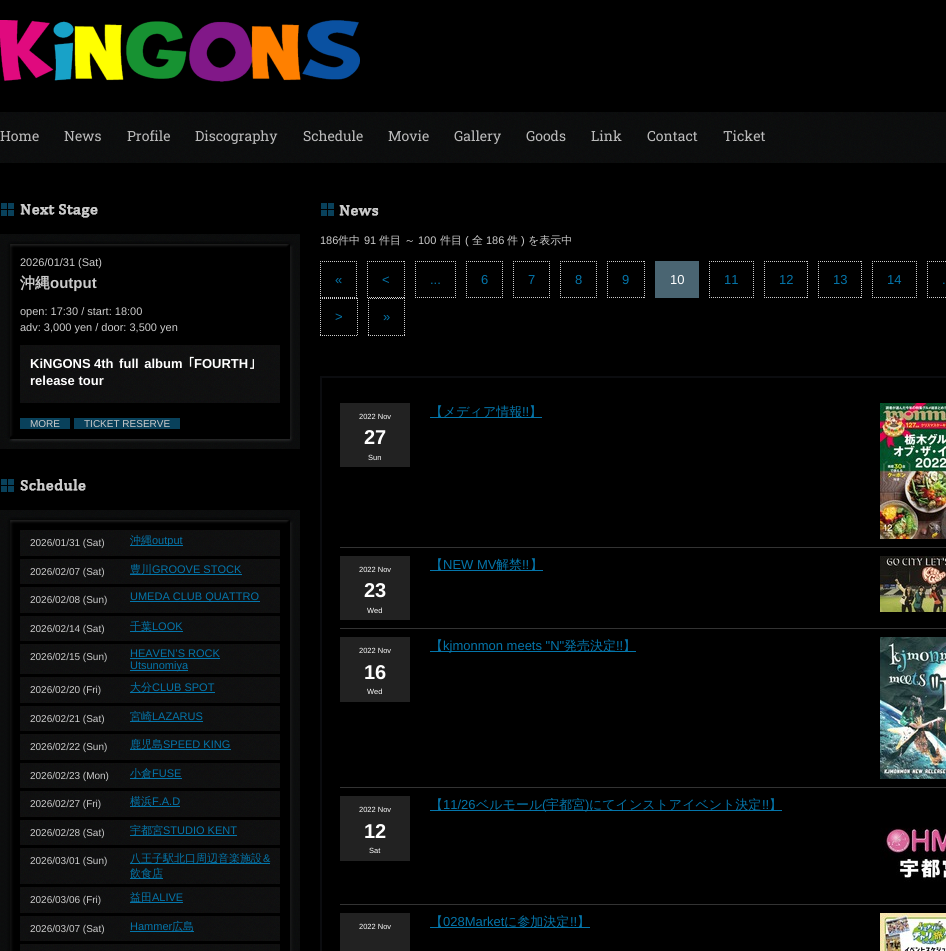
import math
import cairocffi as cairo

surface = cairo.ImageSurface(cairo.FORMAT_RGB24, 946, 951)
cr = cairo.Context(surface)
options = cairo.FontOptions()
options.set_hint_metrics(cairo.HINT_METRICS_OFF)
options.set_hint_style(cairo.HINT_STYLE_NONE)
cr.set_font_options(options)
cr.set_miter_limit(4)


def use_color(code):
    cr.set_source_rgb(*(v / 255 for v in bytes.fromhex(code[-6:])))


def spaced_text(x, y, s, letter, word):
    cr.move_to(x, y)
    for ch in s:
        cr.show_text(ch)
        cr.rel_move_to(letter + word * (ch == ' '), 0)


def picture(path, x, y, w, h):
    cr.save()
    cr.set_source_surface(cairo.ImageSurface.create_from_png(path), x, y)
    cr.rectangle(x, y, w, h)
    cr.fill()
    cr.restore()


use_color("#000000")
cr.paint()
picture("img1.png", 0, 20, 360, 62)
picture("img2.png", 0, 112, 946, 51)
cr.select_font_face("Roboto Slab")
cr.set_font_size(14)
use_color("#bbbbbb")
cr.move_to(0, 141)
cr.show_text("Home")
cr.move_to(64, 141)
cr.show_text("News")
cr.move_to(127, 141)
cr.show_text("Profile")
cr.move_to(195, 141)
cr.show_text("Discography")
cr.move_to(303, 141)
cr.show_text("Schedule")
cr.move_to(388, 141)
cr.show_text("Movie")
cr.move_to(454, 141)
cr.show_text("Gallery")
cr.move_to(526, 141)
cr.show_text("Goods")
cr.move_to(591, 141)
cr.show_text("Link")
cr.move_to(647, 141)
cr.show_text("Contact")
cr.move_to(723, 141)
cr.show_text("Ticket")
picture("img3.png", 1, 203, 97, 15)
picture("img4.png", 0, 434, 300, 15)
picture("img5.png", 0, 234, 300, 20)
picture("img6.png", 0, 254, 300, 180)
cr.select_font_face("Liberation Sans")
cr.set_font_size(11)
use_color("#cccccc")
cr.move_to(20, 266)
cr.show_text("2026/01/31 (Sat)")
cr.select_font_face("WenQuanYi Zen Hei", cairo.FONT_SLANT_NORMAL, cairo.FONT_WEIGHT_BOLD)
cr.set_font_size(15)
cr.move_to(20, 288)
cr.show_text("沖縄")
cr.select_font_face("Liberation Sans", cairo.FONT_SLANT_NORMAL, cairo.FONT_WEIGHT_BOLD)
cr.move_to(50, 288)
cr.show_text("output")
cr.select_font_face("Liberation Sans")
cr.set_font_size(11)
cr.move_to(20, 315)
cr.show_text("open: 17:30 / start: 18:00")
cr.move_to(20, 331)
cr.show_text("adv: 3,000 yen / door: 3,500 yen")
picture("img7.png", 20, 345, 260, 58)
cr.select_font_face("Liberation Sans", cairo.FONT_SLANT_NORMAL, cairo.FONT_WEIGHT_BOLD)
cr.set_font_size(13)
use_color("#ffffff")
cr.move_to(30, 368)
cr.show_text("KiNGONS")
spaced_text(94, 368, "4th full album", 0, 2)
cr.select_font_face("IPAPGothic", cairo.FONT_SLANT_NORMAL, cairo.FONT_WEIGHT_BOLD)
cr.move_to(188, 368)
cr.show_text("｢")
cr.select_font_face("Liberation Sans", cairo.FONT_SLANT_NORMAL, cairo.FONT_WEIGHT_BOLD)
cr.move_to(194, 368)
cr.show_text("FOURTH")
cr.select_font_face("IPAPGothic", cairo.FONT_SLANT_NORMAL, cairo.FONT_WEIGHT_BOLD)
cr.move_to(249, 368)
cr.show_text("」")
cr.select_font_face("Liberation Sans", cairo.FONT_SLANT_NORMAL, cairo.FONT_WEIGHT_BOLD)
cr.move_to(30, 385)
cr.show_text("release tour")
use_color("#09415b")
cr.rectangle(20, 418, 50, 11)
cr.fill()
cr.select_font_face("Liberation Sans")
cr.set_font_size(10)
use_color("#cccccc")
cr.move_to(30, 427)
cr.show_text("MORE")
use_color("#09415b")
cr.rectangle(74, 418, 106, 11)
cr.fill()
use_color("#cccccc")
cr.move_to(84, 427)
cr.show_text("TICKET RESERVE")
picture("img8.png", 1, 479, 85, 13)
picture("img5.png", 0, 510, 300, 20)
picture("img9.png", 0, 530, 300, 421)
picture("img10.png", 20, 530, 260, 26)
cr.move_to(30, 546)
cr.show_text("2026/01/31 (Sat)")
use_color("#0475aa")
cr.rectangle(130, 545, 53, 1)
cr.fill()
cr.select_font_face("WenQuanYi Zen Hei Medium")
cr.set_font_size(11)
cr.move_to(130, 544)
cr.show_text("沖縄")
cr.select_font_face("Liberation Sans")
cr.move_to(152, 544)
cr.show_text("output")
picture("img11.png", 20, 559, 260, 25)
cr.set_font_size(10)
use_color("#cccccc")
cr.move_to(30, 575)
cr.show_text("2026/02/07 (Sat)")
use_color("#0475aa")
cr.rectangle(130, 574, 112, 1)
cr.fill()
cr.select_font_face("WenQuanYi Zen Hei Medium")
cr.set_font_size(11)
cr.move_to(130, 573)
cr.show_text("豊川")
cr.select_font_face("Liberation Sans")
cr.move_to(152, 573)
cr.show_text("GROOVE STOCK")
picture("img10.png", 20, 587, 260, 26)
cr.set_font_size(10)
use_color("#cccccc")
cr.move_to(30, 603)
cr.show_text("2026/02/08 (Sun)")
use_color("#0475aa")
cr.rectangle(130, 601, 130, 1)
cr.fill()
cr.set_font_size(11)
cr.move_to(130, 600)
cr.show_text("UMEDA CLUB QUATTRO")
picture("img11.png", 20, 616, 260, 25)
cr.set_font_size(10)
use_color("#cccccc")
cr.move_to(30, 632)
cr.show_text("2026/02/14 (Sat)")
use_color("#0475aa")
cr.rectangle(130, 631, 53, 1)
cr.fill()
cr.select_font_face("WenQuanYi Zen Hei Medium")
cr.set_font_size(11)
cr.move_to(130, 630)
cr.show_text("千葉")
cr.select_font_face("Liberation Sans")
cr.move_to(152, 630)
cr.show_text("LOOK")
picture("img12.png", 20, 644, 260, 30)
cr.set_font_size(10)
use_color("#cccccc")
cr.move_to(30, 660)
cr.show_text("2026/02/15 (Sun)")
cr.set_font_size(11)
use_color("#0475aa")
cr.move_to(130, 657)
cr.show_text("HEAVEN’S ROCK")
cr.rectangle(130, 658, 90, 1)
cr.fill()
cr.rectangle(130, 670, 58, 1)
cr.fill()
cr.move_to(130, 669)
cr.show_text("Utsunomiya")
picture("img10.png", 20, 677, 260, 26)
cr.set_font_size(10)
use_color("#cccccc")
cr.move_to(30, 693)
cr.show_text("2026/02/20 (Fri)")
use_color("#0475aa")
cr.rectangle(130, 692, 85, 1)
cr.fill()
cr.select_font_face("WenQuanYi Zen Hei Medium")
cr.set_font_size(11)
cr.move_to(130, 691)
cr.show_text("大分")
cr.select_font_face("Liberation Sans")
cr.move_to(152, 691)
cr.show_text("CLUB SPOT")
picture("img11.png", 20, 706, 260, 25)
cr.set_font_size(10)
use_color("#cccccc")
cr.move_to(30, 722)
cr.show_text("2026/02/21 (Sat)")
use_color("#0475aa")
cr.rectangle(130, 721, 73, 1)
cr.fill()
cr.select_font_face("WenQuanYi Zen Hei Medium")
cr.set_font_size(11)
cr.move_to(130, 720)
cr.show_text("宮崎")
cr.select_font_face("Liberation Sans")
cr.move_to(152, 720)
cr.show_text("LAZARUS")
picture("img10.png", 20, 734, 260, 26)
cr.set_font_size(10)
use_color("#cccccc")
cr.move_to(30, 750)
cr.show_text("2026/02/22 (Sun)")
use_color("#0475aa")
cr.rectangle(130, 749, 101, 1)
cr.fill()
cr.select_font_face("WenQuanYi Zen Hei Medium")
cr.set_font_size(11)
cr.move_to(130, 748)
cr.show_text("鹿児島")
cr.select_font_face("Liberation Sans")
cr.move_to(163, 748)
cr.show_text("SPEED KING")
picture("img11.png", 20, 763, 260, 25)
cr.set_font_size(10)
use_color("#cccccc")
cr.move_to(30, 779)
cr.show_text("2026/02/23 (Mon)")
use_color("#0475aa")
cr.rectangle(130, 778, 52, 1)
cr.fill()
cr.select_font_face("WenQuanYi Zen Hei Medium")
cr.set_font_size(11)
cr.move_to(130, 777)
cr.show_text("小倉")
cr.select_font_face("Liberation Sans")
cr.move_to(152, 777)
cr.show_text("FUSE")
picture("img10.png", 20, 791, 260, 26)
cr.set_font_size(10)
use_color("#cccccc")
cr.move_to(30, 807)
cr.show_text("2026/02/27 (Fri)")
use_color("#0475aa")
cr.rectangle(130, 806, 50, 1)
cr.fill()
cr.select_font_face("WenQuanYi Zen Hei Medium")
cr.set_font_size(11)
cr.move_to(130, 805)
cr.show_text("横浜")
cr.select_font_face("Liberation Sans")
cr.move_to(152, 805)
cr.show_text("F.A.D")
picture("img11.png", 20, 820, 260, 25)
cr.set_font_size(10)
use_color("#cccccc")
cr.move_to(30, 836)
cr.show_text("2026/02/28 (Sat)")
use_color("#0475aa")
cr.rectangle(130, 835, 107, 1)
cr.fill()
cr.select_font_face("WenQuanYi Zen Hei Medium")
cr.set_font_size(11)
cr.move_to(130, 834)
cr.show_text("宇都宮")
cr.select_font_face("Liberation Sans")
cr.move_to(163, 834)
cr.show_text("STUDIO KENT")
picture("img13.png", 20, 848, 260, 36)
cr.set_font_size(10)
use_color("#cccccc")
cr.move_to(30, 864)
cr.show_text("2026/03/01 (Sun)")
use_color("#0475aa")
cr.rectangle(130, 863, 140, 1)
cr.fill()
cr.select_font_face("WenQuanYi Zen Hei Medium")
cr.set_font_size(11)
cr.move_to(130, 862)
cr.show_text("八王子駅北口周辺音楽施設")
cr.select_font_face("Liberation Sans")
cr.move_to(263, 862)
cr.show_text("&")
cr.rectangle(130, 878, 33, 1)
cr.fill()
cr.select_font_face("WenQuanYi Zen Hei Medium")
cr.move_to(130, 877)
cr.show_text("飲食店")
picture("img10.png", 20, 887, 260, 26)
cr.select_font_face("Liberation Sans")
cr.set_font_size(10)
use_color("#cccccc")
cr.move_to(30, 903)
cr.show_text("2026/03/06 (Fri)")
use_color("#0475aa")
cr.rectangle(130, 902, 53, 1)
cr.fill()
cr.select_font_face("WenQuanYi Zen Hei Medium")
cr.set_font_size(11)
cr.move_to(130, 901)
cr.show_text("益田")
cr.select_font_face("Liberation Sans")
cr.move_to(152, 901)
cr.show_text("ALIVE")
picture("img11.png", 20, 916, 260, 25)
cr.set_font_size(10)
use_color("#cccccc")
cr.move_to(30, 932)
cr.show_text("2026/03/07 (Sat)")
cr.set_font_size(11)
use_color("#0475aa")
cr.move_to(130, 930)
cr.show_text("Hammer")
cr.rectangle(130, 931, 64, 1)
cr.fill()
cr.select_font_face("WenQuanYi Zen Hei Medium")
cr.move_to(172, 930)
cr.show_text("広島")
picture("img14.png", 20, 944, 260, 7)
picture("img15.png", 321, 203, 58, 13)
cr.select_font_face("Liberation Sans")
use_color("#cccccc")
cr.move_to(320, 244)
cr.show_text("186")
cr.select_font_face("WenQuanYi Zen Hei Medium")
cr.move_to(338, 244)
cr.show_text("件中")
cr.select_font_face("Liberation Sans")
cr.move_to(364, 244)
cr.show_text("91")
cr.select_font_face("WenQuanYi Zen Hei Medium")
cr.move_to(379, 244)
cr.show_text("件目 ～")
cr.select_font_face("Liberation Sans")
cr.move_to(418, 244)
cr.show_text("100")
cr.select_font_face("WenQuanYi Zen Hei Medium")
cr.move_to(440, 244)
cr.show_text("件目")
cr.select_font_face("Liberation Sans")
cr.move_to(465, 244)
cr.show_text("(")
cr.select_font_face("WenQuanYi Zen Hei Medium")
cr.move_to(472, 244)
cr.show_text("全")
cr.select_font_face("Liberation Sans")
cr.move_to(486, 244)
cr.show_text("186")
cr.select_font_face("WenQuanYi Zen Hei Medium")
cr.move_to(507, 244)
cr.show_text("件")
cr.select_font_face("Liberation Sans")
cr.move_to(521, 244)
cr.show_text(")")
cr.select_font_face("WenQuanYi Zen Hei Medium")
cr.move_to(528, 244)
cr.show_text("を表示中")
cr.new_path()
cr.move_to(320, 261.5)
cr.line_to(357, 261.5)
cr.move_to(356.5, 261)
cr.line_to(356.5, 298)
cr.move_to(320, 297.5)
cr.line_to(357, 297.5)
cr.move_to(320.5, 261)
cr.line_to(320.5, 298)
cr.set_line_width(1)
cr.set_dash([1, 1])
cr.stroke()
cr.select_font_face("Liberation Sans")
cr.set_font_size(13)
use_color("#0475aa")
cr.move_to(335, 284)
cr.show_text("«")
cr.new_path()
cr.move_to(367, 261.5)
cr.line_to(405, 261.5)
cr.move_to(404.5, 261)
cr.line_to(404.5, 298)
cr.move_to(367, 297.5)
cr.line_to(405, 297.5)
cr.move_to(367.5, 261)
cr.line_to(367.5, 298)
use_color("#cccccc")
cr.stroke()
use_color("#0475aa")
cr.move_to(382, 284)
cr.show_text("<")
cr.new_path()
cr.move_to(415, 261.5)
cr.line_to(456, 261.5)
cr.move_to(455.5, 261)
cr.line_to(455.5, 298)
cr.move_to(415, 297.5)
cr.line_to(456, 297.5)
cr.move_to(415.5, 261)
cr.line_to(415.5, 298)
use_color("#cccccc")
cr.stroke()
use_color("#0475aa")
cr.move_to(430, 284)
cr.show_text("...")
cr.new_path()
cr.move_to(466, 261.5)
cr.line_to(503, 261.5)
cr.move_to(502.5, 261)
cr.line_to(502.5, 298)
cr.move_to(466, 297.5)
cr.line_to(503, 297.5)
cr.move_to(466.5, 261)
cr.line_to(466.5, 298)
use_color("#cccccc")
cr.stroke()
use_color("#0475aa")
cr.move_to(481, 284)
cr.show_text("6")
cr.new_path()
cr.move_to(513, 261.5)
cr.line_to(550, 261.5)
cr.move_to(549.5, 261)
cr.line_to(549.5, 298)
cr.move_to(513, 297.5)
cr.line_to(550, 297.5)
cr.move_to(513.5, 261)
cr.line_to(513.5, 298)
use_color("#cccccc")
cr.stroke()
use_color("#0475aa")
cr.move_to(528, 284)
cr.show_text("7")
cr.new_path()
cr.move_to(560, 261.5)
cr.line_to(597, 261.5)
cr.move_to(596.5, 261)
cr.line_to(596.5, 298)
cr.move_to(560, 297.5)
cr.line_to(597, 297.5)
cr.move_to(560.5, 261)
cr.line_to(560.5, 298)
use_color("#cccccc")
cr.stroke()
use_color("#0475aa")
cr.move_to(575, 284)
cr.show_text("8")
cr.new_path()
cr.move_to(607, 261.5)
cr.line_to(645, 261.5)
cr.move_to(644.5, 261)
cr.line_to(644.5, 298)
cr.move_to(607, 297.5)
cr.line_to(645, 297.5)
cr.move_to(607.5, 261)
cr.line_to(607.5, 298)
use_color("#cccccc")
cr.stroke()
use_color("#0475aa")
cr.move_to(622, 284)
cr.show_text("9")
use_color("#4a6572")
cr.rectangle(655, 261, 44, 37)
cr.fill()
use_color("#ffffff")
cr.move_to(670, 284)
cr.show_text("10")
cr.new_path()
cr.move_to(709, 261.5)
cr.line_to(754, 261.5)
cr.move_to(753.5, 261)
cr.line_to(753.5, 298)
cr.move_to(709, 297.5)
cr.line_to(754, 297.5)
cr.move_to(709.5, 261)
cr.line_to(709.5, 298)
use_color("#cccccc")
cr.stroke()
use_color("#0475aa")
cr.move_to(724, 284)
cr.show_text("11")
cr.new_path()
cr.move_to(764, 261.5)
cr.line_to(808, 261.5)
cr.move_to(807.5, 261)
cr.line_to(807.5, 298)
cr.move_to(764, 297.5)
cr.line_to(808, 297.5)
cr.move_to(764.5, 261)
cr.line_to(764.5, 298)
use_color("#cccccc")
cr.stroke()
use_color("#0475aa")
cr.move_to(779, 284)
cr.show_text("12")
cr.new_path()
cr.move_to(818, 261.5)
cr.line_to(862, 261.5)
cr.move_to(861.5, 261)
cr.line_to(861.5, 298)
cr.move_to(818, 297.5)
cr.line_to(862, 297.5)
cr.move_to(818.5, 261)
cr.line_to(818.5, 298)
use_color("#cccccc")
cr.stroke()
use_color("#0475aa")
cr.move_to(833, 284)
cr.show_text("13")
cr.new_path()
cr.move_to(872, 261.5)
cr.line_to(917, 261.5)
cr.move_to(916.5, 261)
cr.line_to(916.5, 298)
cr.move_to(872, 297.5)
cr.line_to(917, 297.5)
cr.move_to(872.5, 261)
cr.line_to(872.5, 298)
use_color("#cccccc")
cr.stroke()
use_color("#0475aa")
cr.move_to(887, 284)
cr.show_text("14")
cr.new_path()
cr.move_to(927, 261.5)
cr.line_to(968, 261.5)
cr.move_to(927, 297.5)
cr.line_to(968, 297.5)
cr.move_to(927.5, 261)
cr.line_to(927.5, 298)
use_color("#cccccc")
cr.stroke()
use_color("#0475aa")
cr.move_to(942, 284)
cr.show_text(".")
cr.new_path()
cr.move_to(320, 298.5)
cr.line_to(358, 298.5)
cr.move_to(357.5, 298)
cr.line_to(357.5, 336)
cr.move_to(320, 335.5)
cr.line_to(358, 335.5)
cr.move_to(320.5, 298)
cr.line_to(320.5, 336)
use_color("#cccccc")
cr.stroke()
use_color("#0475aa")
cr.move_to(335, 321)
cr.show_text(">")
cr.new_path()
cr.move_to(368, 298.5)
cr.line_to(405, 298.5)
cr.move_to(404.5, 298)
cr.line_to(404.5, 336)
cr.move_to(368, 335.5)
cr.line_to(405, 335.5)
cr.move_to(368.5, 298)
cr.line_to(368.5, 336)
use_color("#cccccc")
cr.stroke()
use_color("#0475aa")
cr.move_to(383, 321)
cr.show_text("»")
cr.rectangle(321, 377, 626, 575)
use_color("#0b0c0f")
cr.set_line_width(2)
cr.set_dash([])
cr.stroke()
use_color("#333333")
cr.rectangle(340, 547, 606, 1)
cr.fill()
use_color("#0475aa")
cr.rectangle(430, 417, 112, 1)
cr.fill()
cr.select_font_face("WenQuanYi Zen Hei Medium")
cr.move_to(430, 416)
cr.show_text("【メディア情報")
cr.select_font_face("Liberation Sans")
cr.move_to(522, 416)
cr.show_text("!!")
cr.select_font_face("WenQuanYi Zen Hei Medium")
cr.move_to(529, 416)
cr.show_text("】")
use_color("#222222")
cr.rectangle(340, 403, 70, 64)
cr.fill()
cr.select_font_face("Liberation Sans")
cr.set_font_size(7.5)
use_color("#ffffff")
cr.move_to(359, 419)
cr.show_text("2022 Nov")
cr.select_font_face("Liberation Sans", cairo.FONT_SLANT_NORMAL, cairo.FONT_WEIGHT_BOLD)
cr.set_font_size(20)
cr.move_to(364, 444)
cr.show_text("27")
cr.select_font_face("Liberation Sans")
cr.set_font_size(7.5)
cr.move_to(368, 460)
cr.show_text("Sun")
picture("img16.png", 880, 403, 66, 136)
use_color("#333333")
cr.rectangle(340, 628, 606, 1)
cr.fill()
use_color("#0475aa")
cr.rectangle(430, 570, 113, 1)
cr.fill()
cr.select_font_face("WenQuanYi Zen Hei Medium")
cr.set_font_size(13)
cr.move_to(430, 569)
cr.show_text("【")
cr.select_font_face("Liberation Sans")
cr.move_to(443, 569)
cr.show_text("NEW MV")
cr.select_font_face("WenQuanYi Zen Hei Medium")
cr.move_to(496, 569)
cr.show_text("解禁")
cr.select_font_face("Liberation Sans")
cr.move_to(522, 569)
cr.show_text("!!")
cr.select_font_face("WenQuanYi Zen Hei Medium")
cr.move_to(530, 569)
cr.show_text("】")
use_color("#222222")
cr.rectangle(340, 556, 70, 64)
cr.fill()
cr.select_font_face("Liberation Sans")
cr.set_font_size(7.5)
use_color("#ffffff")
cr.move_to(359, 572)
cr.show_text("2022 Nov")
cr.select_font_face("Liberation Sans", cairo.FONT_SLANT_NORMAL, cairo.FONT_WEIGHT_BOLD)
cr.set_font_size(20)
cr.move_to(364, 597)
cr.show_text("23")
cr.select_font_face("Liberation Sans")
cr.set_font_size(7.5)
cr.move_to(367, 613)
cr.show_text("Wed")
picture("img17.png", 880, 556, 66, 56)
use_color("#333333")
cr.rectangle(340, 787, 606, 1)
cr.fill()
use_color("#222222")
cr.rectangle(340, 637, 70, 65)
cr.fill()
use_color("#ffffff")
cr.move_to(359, 653)
cr.show_text("2022 Nov")
cr.select_font_face("Liberation Sans", cairo.FONT_SLANT_NORMAL, cairo.FONT_WEIGHT_BOLD)
cr.set_font_size(20)
cr.move_to(364, 679)
cr.show_text("16")
cr.select_font_face("Liberation Sans")
cr.set_font_size(7.5)
cr.move_to(367, 694)
cr.show_text("Wed")
use_color("#0475aa")
cr.rectangle(430, 651, 206, 1)
cr.fill()
cr.select_font_face("WenQuanYi Zen Hei Medium")
cr.set_font_size(13)
cr.move_to(430, 650)
cr.show_text("【")
cr.select_font_face("Liberation Sans")
cr.move_to(443, 650)
cr.show_text("kjmonmon meets \"N\"")
cr.select_font_face("WenQuanYi Zen Hei Medium")
cr.move_to(564, 650)
cr.show_text("発売決定")
cr.select_font_face("Liberation Sans")
cr.move_to(616, 650)
cr.show_text("!!")
cr.select_font_face("WenQuanYi Zen Hei Medium")
cr.move_to(623, 650)
cr.show_text("】")
picture("img18.png", 880, 637, 66, 142)
use_color("#333333")
cr.rectangle(340, 904, 606, 1)
cr.fill()
use_color("#0475aa")
cr.rectangle(430, 810, 352, 1)
cr.fill()
cr.move_to(430, 809)
cr.show_text("【")
cr.select_font_face("Liberation Sans")
cr.move_to(443, 809)
cr.show_text("11/26")
cr.select_font_face("WenQuanYi Zen Hei Medium")
cr.move_to(476, 809)
cr.show_text("ベルモール")
cr.select_font_face("Liberation Sans")
cr.move_to(542, 809)
cr.show_text("(")
cr.select_font_face("WenQuanYi Zen Hei Medium")
cr.move_to(546, 809)
cr.show_text("宇都宮")
cr.select_font_face("Liberation Sans")
cr.move_to(585, 809)
cr.show_text(")")
cr.select_font_face("WenQuanYi Zen Hei Medium")
cr.move_to(589, 809)
cr.show_text("にてインストアイベント決定")
cr.select_font_face("Liberation Sans")
cr.move_to(762, 809)
cr.show_text("!!")
cr.select_font_face("WenQuanYi Zen Hei Medium")
cr.move_to(769, 809)
cr.show_text("】")
use_color("#222222")
cr.rectangle(340, 796, 70, 65)
cr.fill()
cr.select_font_face("Liberation Sans")
cr.set_font_size(7.5)
use_color("#ffffff")
cr.move_to(359, 812)
cr.show_text("2022 Nov")
cr.select_font_face("Liberation Sans", cairo.FONT_SLANT_NORMAL, cairo.FONT_WEIGHT_BOLD)
cr.set_font_size(20)
cr.move_to(364, 838)
cr.show_text("12")
cr.select_font_face("Liberation Sans")
cr.set_font_size(7.5)
cr.move_to(369, 853)
cr.show_text("Sat")
picture("img19.png", 880, 827, 66, 55)
use_color("#222222")
cr.rectangle(340, 913, 70, 38)
cr.fill()
use_color("#ffffff")
cr.move_to(359, 929)
cr.show_text("2022 Nov")
use_color("#0475aa")
cr.rectangle(430, 927, 160, 1)
cr.fill()
cr.select_font_face("WenQuanYi Zen Hei Medium")
cr.set_font_size(13)
cr.move_to(430, 926)
cr.show_text("【")
cr.select_font_face("Liberation Sans")
cr.move_to(443, 926)
cr.show_text("028Market")
cr.select_font_face("WenQuanYi Zen Hei Medium")
cr.move_to(504, 926)
cr.show_text("に参加決定")
cr.select_font_face("Liberation Sans")
cr.move_to(570, 926)
cr.show_text("!!")
cr.select_font_face("WenQuanYi Zen Hei Medium")
cr.move_to(577, 926)
cr.show_text("】")
picture("img20.png", 880, 913, 66, 38)
surface.write_to_png("result.png")
